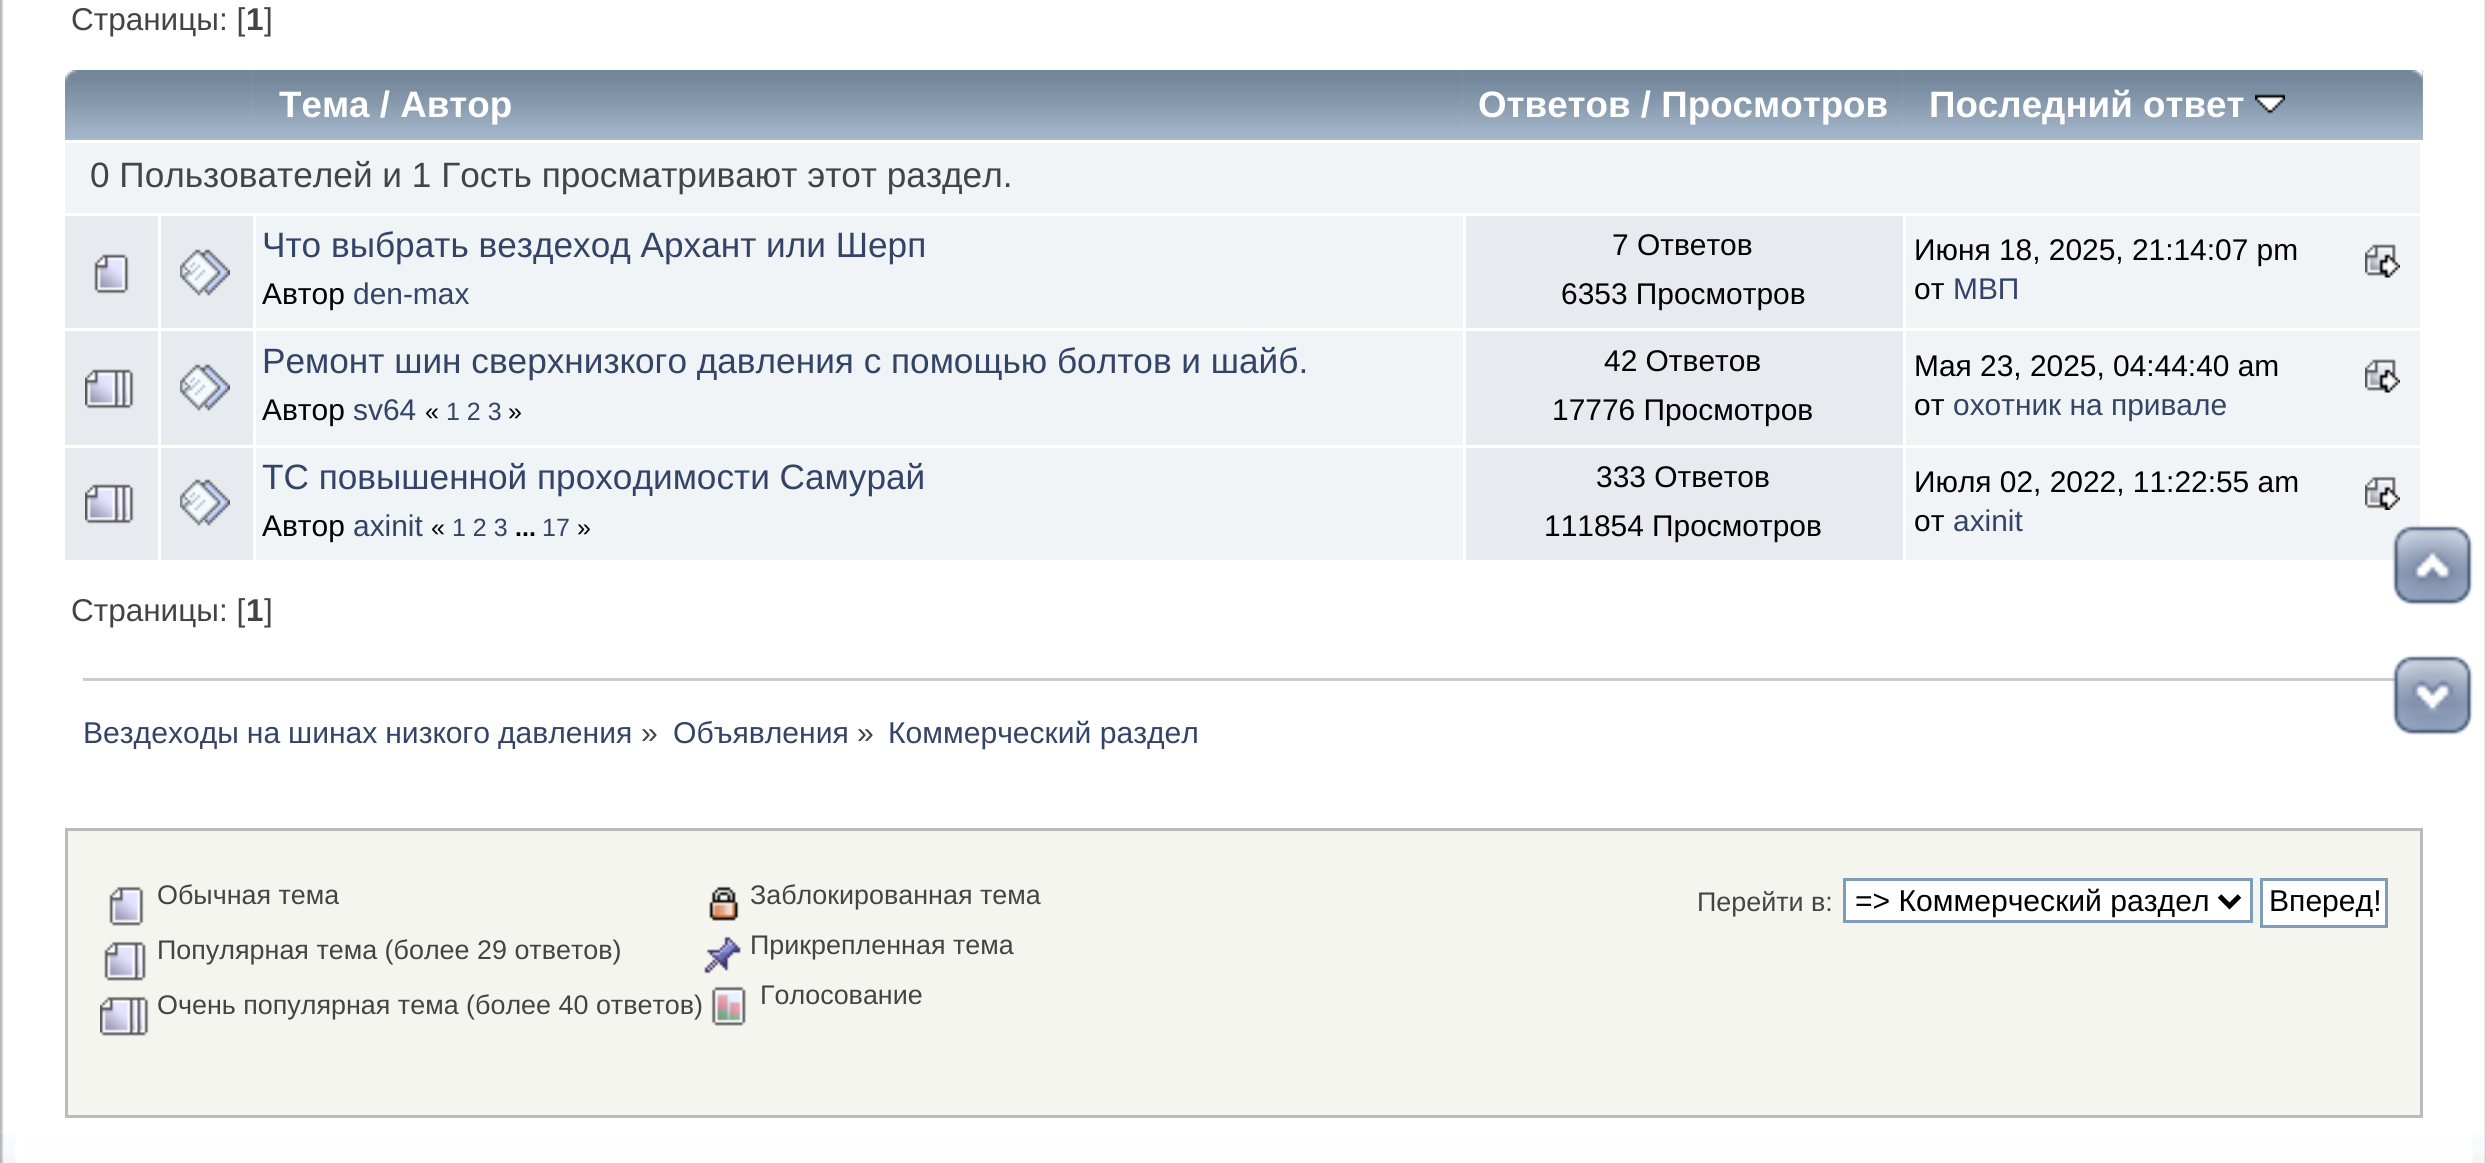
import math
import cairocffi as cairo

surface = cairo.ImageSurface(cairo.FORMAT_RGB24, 2486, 1163)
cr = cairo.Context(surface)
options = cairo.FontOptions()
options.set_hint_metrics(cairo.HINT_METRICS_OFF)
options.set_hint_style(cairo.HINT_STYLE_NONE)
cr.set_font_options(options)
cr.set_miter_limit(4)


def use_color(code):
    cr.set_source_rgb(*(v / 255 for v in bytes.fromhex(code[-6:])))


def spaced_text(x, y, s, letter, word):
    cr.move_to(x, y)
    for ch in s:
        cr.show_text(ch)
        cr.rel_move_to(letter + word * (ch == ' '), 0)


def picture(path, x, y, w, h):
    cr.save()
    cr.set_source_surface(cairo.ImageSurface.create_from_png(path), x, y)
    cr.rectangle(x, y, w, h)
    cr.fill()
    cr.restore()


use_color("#ffffff")
cr.paint()
picture("img1.png", 0, 0, 4, 1133)
picture("img2.png", 2484, 0, 2, 1133)
cr.select_font_face("Liberation Sans")
cr.set_font_size(31.5)
use_color("#444444")
cr.move_to(71, 30)
cr.show_text("Страницы: [")
cr.select_font_face("Liberation Sans", cairo.FONT_SLANT_NORMAL, cairo.FONT_WEIGHT_BOLD)
cr.move_to(246, 30)
cr.show_text("1")
cr.select_font_face("Liberation Sans")
cr.move_to(264, 30)
cr.show_text("]")
use_color("#a7b9cd")
cr.rectangle(65, 70, 2358, 70)
cr.fill()
picture("img3.png", 65, 70, 188, 68)
picture("img4.png", 252, 70, 1211, 68)
cr.select_font_face("Liberation Sans", cairo.FONT_SLANT_NORMAL, cairo.FONT_WEIGHT_BOLD)
cr.set_font_size(36.75)
use_color("#ffffff")
cr.move_to(279, 117)
cr.show_text("Тема / Автор")
picture("img5.png", 1462, 70, 441, 68)
cr.move_to(1478, 117)
cr.show_text("Ответов / Просмотров")
picture("img6.png", 1902, 70, 521, 68)
cr.move_to(1929, 117)
cr.show_text("Последний ответ")
picture("img7.png", 2255, 94, 30, 20)
use_color("#f0f4f7")
cr.rectangle(65, 143, 2355, 70)
cr.fill()
cr.select_font_face("Liberation Sans")
cr.set_font_size(35.2)
use_color("#444444")
cr.move_to(90, 187)
cr.show_text("0 Пользователей и 1 Гость просматривают этот раздел.")
use_color("#e7eaef")
cr.rectangle(65, 216, 93, 112)
cr.fill()
picture("img8.png", 94, 254, 35, 40)
cr.rectangle(161, 216, 92, 112)
cr.fill()
picture("img9.png", 180, 249, 50, 47)
use_color("#f0f4f7")
cr.rectangle(256, 216, 1207, 112)
cr.fill()
use_color("#334466")
cr.move_to(262, 257)
cr.show_text("Что выбрать вездеход Архант или Шерп")
cr.set_font_size(29.9)
use_color("#000000")
cr.move_to(262, 304)
cr.show_text("Автор")
use_color("#334466")
cr.move_to(353, 304)
cr.show_text("den-max")
use_color("#e7eaef")
cr.rectangle(1466, 216, 437, 112)
cr.fill()
use_color("#000000")
cr.move_to(1612, 255)
cr.show_text("7 Ответов")
cr.move_to(1561, 304)
cr.show_text("6353 Просмотров")
use_color("#f0f4f7")
cr.rectangle(1906, 216, 514, 112)
cr.fill()
use_color("#000000")
cr.move_to(1914, 260)
cr.show_text("Июня 18, 2025, 21:14:07 pm")
picture("img10.png", 2365, 244, 35, 34)
cr.move_to(1914, 299)
cr.show_text("от")
use_color("#334466")
cr.move_to(1953, 299)
cr.show_text("МВП")
use_color("#e7eaef")
cr.rectangle(65, 331, 93, 114)
cr.fill()
picture("img11.png", 85, 369, 49, 40)
cr.rectangle(161, 331, 92, 114)
cr.fill()
picture("img9.png", 180, 364, 50, 47)
use_color("#f0f4f7")
cr.rectangle(256, 331, 1207, 114)
cr.fill()
cr.set_font_size(35.2)
use_color("#334466")
cr.move_to(262, 373)
cr.show_text("Ремонт шин сверхнизкого давления с помощью болтов и шайб.")
cr.set_font_size(29.9)
use_color("#000000")
cr.move_to(262, 420)
cr.show_text("Автор")
use_color("#334466")
cr.move_to(353, 420)
cr.show_text("sv64")
cr.set_font_size(25)
use_color("#000000")
cr.move_to(425, 420)
cr.show_text("«")
use_color("#334466")
cr.move_to(446, 420)
cr.show_text("1 2 3")
use_color("#000000")
cr.move_to(508, 420)
cr.show_text("»")
use_color("#e7eaef")
cr.rectangle(1466, 331, 437, 114)
cr.fill()
cr.set_font_size(29.9)
use_color("#000000")
cr.move_to(1604, 371)
cr.show_text("42 Ответов")
cr.move_to(1552, 420)
cr.show_text("17776 Просмотров")
use_color("#f0f4f7")
cr.rectangle(1906, 331, 514, 114)
cr.fill()
use_color("#000000")
cr.move_to(1914, 376)
cr.show_text("Мая 23, 2025, 04:44:40 am")
picture("img10.png", 2365, 359, 35, 34)
cr.move_to(1914, 415)
cr.show_text("от")
use_color("#334466")
cr.move_to(1953, 415)
cr.show_text("охотник на привале")
use_color("#e7eaef")
cr.rectangle(65, 448, 93, 112)
cr.fill()
picture("img11.png", 85, 484, 49, 40)
cr.rectangle(161, 448, 92, 112)
cr.fill()
picture("img9.png", 180, 479, 50, 47)
use_color("#f0f4f7")
cr.rectangle(256, 448, 1207, 112)
cr.fill()
cr.set_font_size(35.2)
use_color("#334466")
cr.move_to(262, 489)
cr.show_text("ТС повышенной проходимости Самурай")
cr.set_font_size(29.9)
use_color("#000000")
cr.move_to(262, 536)
cr.show_text("Автор")
use_color("#334466")
cr.move_to(353, 536)
cr.show_text("axinit")
cr.set_font_size(25)
use_color("#000000")
cr.move_to(431, 536)
cr.show_text("«")
use_color("#334466")
cr.move_to(452, 536)
cr.show_text("1 2 3")
cr.select_font_face("Liberation Sans", cairo.FONT_SLANT_NORMAL, cairo.FONT_WEIGHT_BOLD)
use_color("#000000")
cr.move_to(515, 536)
cr.show_text("...")
cr.select_font_face("Liberation Sans")
use_color("#334466")
cr.move_to(542, 536)
cr.show_text("17")
use_color("#000000")
cr.move_to(577, 536)
cr.show_text("»")
use_color("#e7eaef")
cr.rectangle(1466, 448, 437, 112)
cr.fill()
cr.set_font_size(29.9)
use_color("#000000")
cr.move_to(1596, 487)
cr.show_text("333 Ответов")
cr.move_to(1544, 536)
cr.show_text("111854 Просмотров")
use_color("#f0f4f7")
cr.rectangle(1906, 448, 514, 112)
cr.fill()
use_color("#000000")
cr.move_to(1914, 492)
cr.show_text("Июля 02, 2022, 11:22:55 am")
picture("img12.png", 2365, 476, 35, 34)
cr.move_to(1914, 531)
cr.show_text("от")
use_color("#334466")
cr.move_to(1953, 531)
cr.show_text("axinit")
cr.set_font_size(31.5)
use_color("#444444")
cr.move_to(71, 621)
cr.show_text("Страницы: [")
cr.select_font_face("Liberation Sans", cairo.FONT_SLANT_NORMAL, cairo.FONT_WEIGHT_BOLD)
cr.move_to(246, 621)
cr.show_text("1")
cr.select_font_face("Liberation Sans")
cr.move_to(264, 621)
cr.show_text("]")
use_color("#cccccc")
cr.rectangle(83, 678, 2313, 3)
cr.fill()
cr.set_font_size(30.1)
use_color("#334466")
spaced_text(83, 743, "Вездеходы на шинах низкого давления", 0, -0.5)
use_color("#444444")
cr.move_to(641, 743)
cr.show_text("»")
use_color("#334466")
cr.move_to(673, 743)
cr.show_text("Объявления")
use_color("#444444")
cr.move_to(857, 743)
cr.show_text("»")
use_color("#334466")
cr.move_to(888, 743)
cr.show_text("Коммерческий раздел")
use_color("#f5f5f0")
cr.rectangle(66.5, 829.5, 2355, 287)
cr.fill_preserve()
use_color("#bbbbbb")
cr.set_line_width(3)
cr.stroke()
picture("img13.png", 109, 886, 35, 40)
cr.set_font_size(26.9)
use_color("#444444")
cr.move_to(157, 904)
cr.show_text("Обычная тема")
picture("img14.png", 104, 941, 42, 40)
cr.move_to(157, 959)
cr.show_text("Популярная тема (более 29 ответов)")
picture("img15.png", 100, 996, 49, 40)
cr.move_to(157, 1014)
cr.show_text("Очень популярная тема (более 40 ответов)")
picture("img16.png", 709, 886, 30, 35)
cr.move_to(750, 904)
cr.show_text("Заблокированная тема")
picture("img17.png", 704, 936, 37, 38)
cr.move_to(750, 954)
cr.show_text("Прикрепленная тема")
picture("img18.png", 711, 986, 35, 40)
cr.move_to(760, 1004)
cr.show_text("Голосование")
cr.move_to(1697, 911)
cr.show_text("Перейти в:")
use_color("#ffffff")
cr.rectangle(1844.5, 879.5, 407, 42)
cr.fill_preserve()
use_color("#7f9db9")
cr.stroke()
cr.new_path()
cr.move_to(2219.5, 896)
cr.line_to(2229.5, 906)
cr.line_to(2239.5, 896)
use_color("#000000")
cr.set_line_width(5)
cr.stroke()
cr.set_font_size(30.1)
cr.move_to(1855, 911)
cr.show_text("=> Коммерческий раздел")
use_color("#ffffff")
cr.rectangle(2261.5, 879.5, 125, 47)
cr.fill_preserve()
use_color("#7f9db9")
cr.set_line_width(3)
cr.stroke()
use_color("#000000")
cr.move_to(2269, 911)
cr.show_text("Вперед!")
picture("img19.png", 2392, 526, 81, 79)
picture("img20.png", 2392, 525, 81, 80)
picture("img21.png", 2392, 656, 81, 79)
picture("img22.png", 2392, 655, 81, 80)
picture("img23.png", 0, 1132, 2486, 31)
picture("img24.png", 2472, 1132, 14, 31)
surface.write_to_png("result.png")
